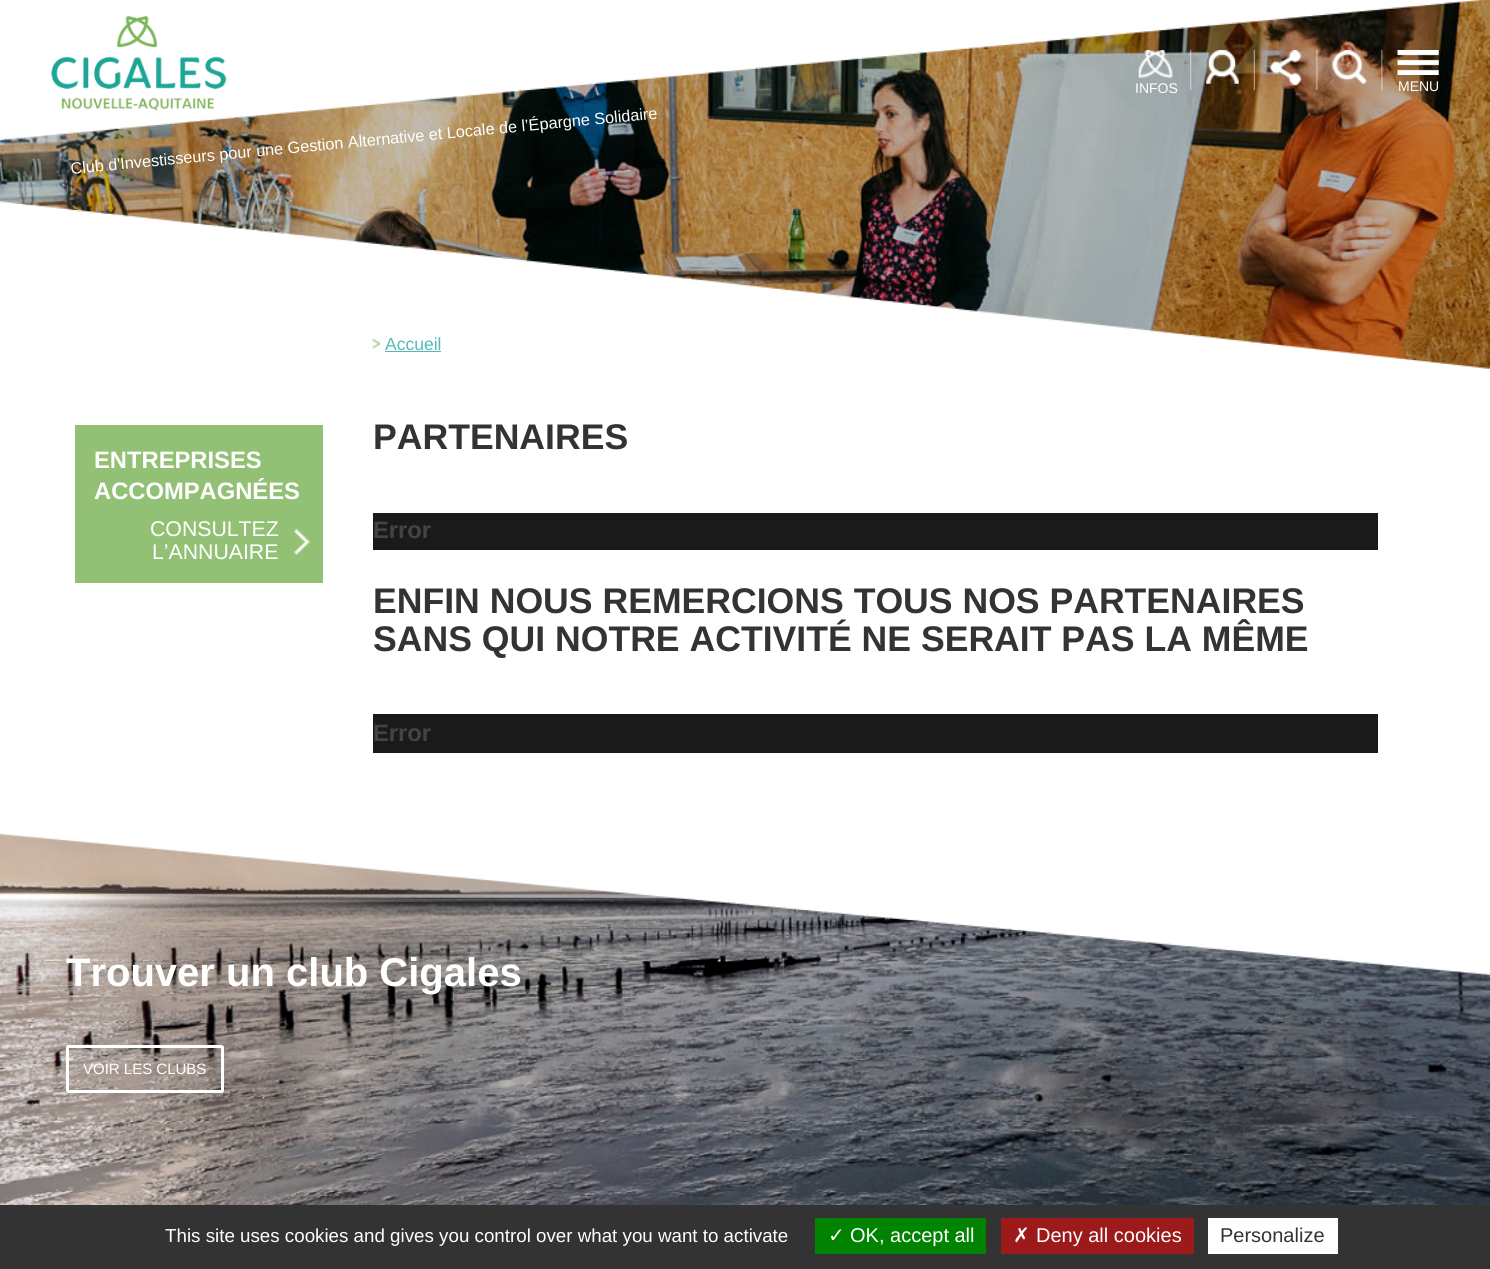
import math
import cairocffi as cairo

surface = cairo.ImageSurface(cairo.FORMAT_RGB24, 1490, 1269)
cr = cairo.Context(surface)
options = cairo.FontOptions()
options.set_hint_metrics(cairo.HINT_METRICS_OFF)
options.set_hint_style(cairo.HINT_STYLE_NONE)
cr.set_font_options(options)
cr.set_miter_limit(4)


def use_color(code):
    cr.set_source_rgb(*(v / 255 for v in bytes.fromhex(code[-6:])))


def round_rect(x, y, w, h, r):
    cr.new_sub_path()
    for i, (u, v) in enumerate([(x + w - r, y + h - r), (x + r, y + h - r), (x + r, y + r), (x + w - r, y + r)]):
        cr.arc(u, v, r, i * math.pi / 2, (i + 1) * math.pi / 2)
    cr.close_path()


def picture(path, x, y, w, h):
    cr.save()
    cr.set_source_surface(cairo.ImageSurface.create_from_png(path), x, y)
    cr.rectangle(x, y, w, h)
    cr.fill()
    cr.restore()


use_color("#ffffff")
cr.paint()
picture("img1.png", 0, 0, 1490, 369)
picture("img2.png", 0, 201, 1490, 199)
picture("img3.png", 0, 0, 1490, 141)
picture("img4.png", 1138, 50, 35, 29)
cr.select_font_face("Arimo")
cr.set_font_size(14)
use_color("#ffffff")
cr.move_to(1135, 93)
cr.show_text("INFOS")
picture("img5.png", 1190, 50, 2, 40)
picture("img6.png", 1206, 50, 33, 34)
picture("img7.png", 1253, 50, 2, 40)
picture("img8.png", 1270, 50, 32, 35)
picture("img9.png", 1316, 50, 2, 40)
picture("img10.png", 1332, 50, 35, 34)
picture("img11.png", 1381, 50, 2, 40)
picture("img12.png", 1397, 50, 42, 25)
cr.move_to(1398, 91)
cr.show_text("MENU")
picture("img13.png", 51, 16, 176, 94)
cr.set_font_size(16.25)
cr.save()
cr.translate(71, 174)
cr.rotate(-5.4 * math.pi / 180)
cr.move_to(0, 0)
cr.show_text("Club d'Investisseurs pour une Gestion Alternative et Locale de l’Épargne Solidaire")
cr.restore()
use_color("#92c175")
cr.rectangle(75, 425, 248, 158)
cr.fill()
cr.select_font_face("Arimo", cairo.FONT_SLANT_NORMAL, cairo.FONT_WEIGHT_BOLD)
cr.set_font_size(23.75)
use_color("#ffffff")
cr.move_to(94, 468)
cr.show_text("ENTREPRISES")
cr.move_to(94, 499)
cr.show_text("ACCOMPAGNÉES")
picture("img14.png", 293, 528, 17, 27)
cr.select_font_face("Arimo")
cr.set_font_size(21.25)
cr.move_to(150, 536)
cr.show_text("CONSULTEZ")
cr.move_to(152, 559)
cr.show_text("L’ANNUAIRE")
picture("img15.png", 372, 338, 8, 11)
cr.set_font_size(17.5)
use_color("#52baba")
cr.move_to(385, 350)
cr.show_text("Accueil")
cr.rectangle(385, 351, 56, 1)
cr.fill()
cr.select_font_face("Arimo", cairo.FONT_SLANT_NORMAL, cairo.FONT_WEIGHT_BOLD)
cr.set_font_size(35.6)
use_color("#333333")
cr.move_to(373, 449)
cr.show_text("PARTENAIRES")
use_color("#1a1a1a")
cr.rectangle(373, 513, 1005, 37)
cr.fill()
cr.set_font_size(23.75)
use_color("#444444")
cr.move_to(373, 538)
cr.show_text("Error")
cr.set_font_size(35.6)
use_color("#333333")
cr.move_to(373, 613)
cr.show_text("ENFIN NOUS REMERCIONS TOUS NOS PARTENAIRES")
cr.move_to(373, 651)
cr.show_text("SANS QUI NOTRE ACTIVITÉ NE SERAIT PAS LA MÊME")
use_color("#1a1a1a")
cr.rectangle(373, 714, 1005, 39)
cr.fill()
cr.set_font_size(23.75)
use_color("#444444")
cr.move_to(373, 741)
cr.show_text("Error")
picture("img16.png", 0, 833, 1490, 372)
cr.set_font_size(40)
use_color("#ffffff")
cr.move_to(66, 986)
cr.show_text("Trouver un club Cigales")
picture("img17.png", 0, 820, 1490, 156)
round_rect(67.5, 1046.5, 155, 45, 1)
cr.set_line_width(3)
cr.stroke()
cr.select_font_face("Arimo")
cr.set_font_size(15)
cr.move_to(83, 1074)
cr.show_text("VOIR LES CLUBS")
use_color("#333333")
cr.rectangle(0, 1205, 1490, 64)
cr.fill()
cr.select_font_face("Liberation Sans")
cr.set_font_size(18.75)
use_color("#ffffff")
cr.move_to(165, 1242)
cr.show_text("This site uses cookies and gives you control over what you want to activate")
use_color("#008300")
cr.rectangle(815, 1218, 171, 36)
cr.fill()
cr.select_font_face("DejaVu Sans")
cr.set_font_size(20)
use_color("#ffffff")
cr.move_to(828, 1242)
cr.show_text("✓")
cr.select_font_face("Liberation Sans")
cr.move_to(850, 1242)
cr.show_text("OK, accept all")
use_color("#9c1a1a")
cr.rectangle(1001, 1218, 193, 36)
cr.fill()
cr.select_font_face("DejaVu Sans")
use_color("#ffffff")
cr.move_to(1013, 1242)
cr.show_text("✗")
cr.select_font_face("Liberation Sans")
cr.move_to(1036, 1242)
cr.show_text("Deny all cookies")
cr.rectangle(1208, 1218, 130, 36)
cr.fill()
use_color("#333333")
cr.move_to(1220, 1242)
cr.show_text("Personalize")
surface.write_to_png("result.png")
